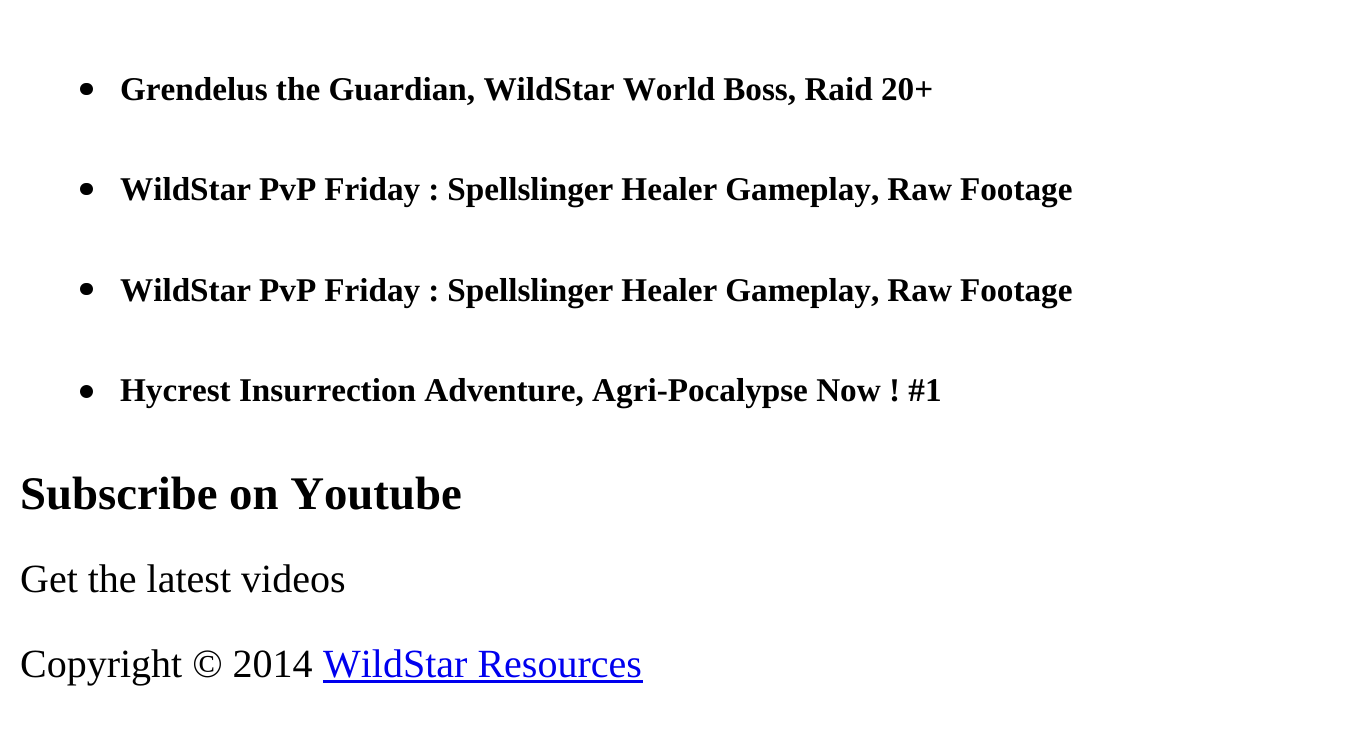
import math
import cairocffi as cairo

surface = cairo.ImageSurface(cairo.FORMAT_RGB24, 1368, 745)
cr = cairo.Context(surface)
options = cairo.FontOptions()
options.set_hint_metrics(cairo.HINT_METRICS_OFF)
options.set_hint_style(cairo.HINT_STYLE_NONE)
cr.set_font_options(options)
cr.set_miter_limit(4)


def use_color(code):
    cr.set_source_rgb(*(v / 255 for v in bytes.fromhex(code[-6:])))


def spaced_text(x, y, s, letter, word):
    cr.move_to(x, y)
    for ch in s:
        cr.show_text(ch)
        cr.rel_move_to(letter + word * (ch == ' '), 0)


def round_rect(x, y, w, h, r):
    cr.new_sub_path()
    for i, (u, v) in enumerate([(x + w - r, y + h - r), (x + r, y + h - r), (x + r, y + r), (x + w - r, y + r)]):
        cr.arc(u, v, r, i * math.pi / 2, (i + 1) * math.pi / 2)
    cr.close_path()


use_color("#ffffff")
cr.paint()
use_color("#000000")
round_rect(80, 83, 13, 12, 6)
cr.fill()
cr.select_font_face("Liberation Serif", cairo.FONT_SLANT_NORMAL, cairo.FONT_WEIGHT_BOLD)
cr.set_font_size(33.2)
cr.move_to(120, 100)
cr.show_text("Grendelus the Guardian, WildStar World Boss, Raid 20+")
round_rect(80, 183, 13, 12, 6)
cr.fill()
spaced_text(120, 200, "WildStar PvP Friday : Spellslinger Healer Gameplay, Raw Footage", 0, -0.25)
round_rect(80, 283, 13, 12, 6)
cr.fill()
spaced_text(120, 301, "WildStar PvP Friday : Spellslinger Healer Gameplay, Raw Footage", 0, -0.25)
cr.new_path()
cr.arc(86.5, 391.5, 6.5, 0, 2 * math.pi)
cr.fill()
cr.move_to(120, 401)
cr.show_text("Hycrest Insurrection Adventure, Agri-Pocalypse Now ! #1")
cr.set_font_size(46.75)
cr.move_to(20, 509)
cr.show_text("Subscribe on Youtube")
cr.select_font_face("Liberation Serif")
cr.set_font_size(40)
cr.move_to(20, 592)
cr.show_text("Get the latest videos")
cr.move_to(20, 677)
cr.show_text("Copyright © 2014")
use_color("#0000ee")
cr.move_to(323, 677)
cr.show_text("WildStar Resources")
cr.rectangle(323, 680, 320, 3)
cr.fill()
surface.write_to_png("result.png")
